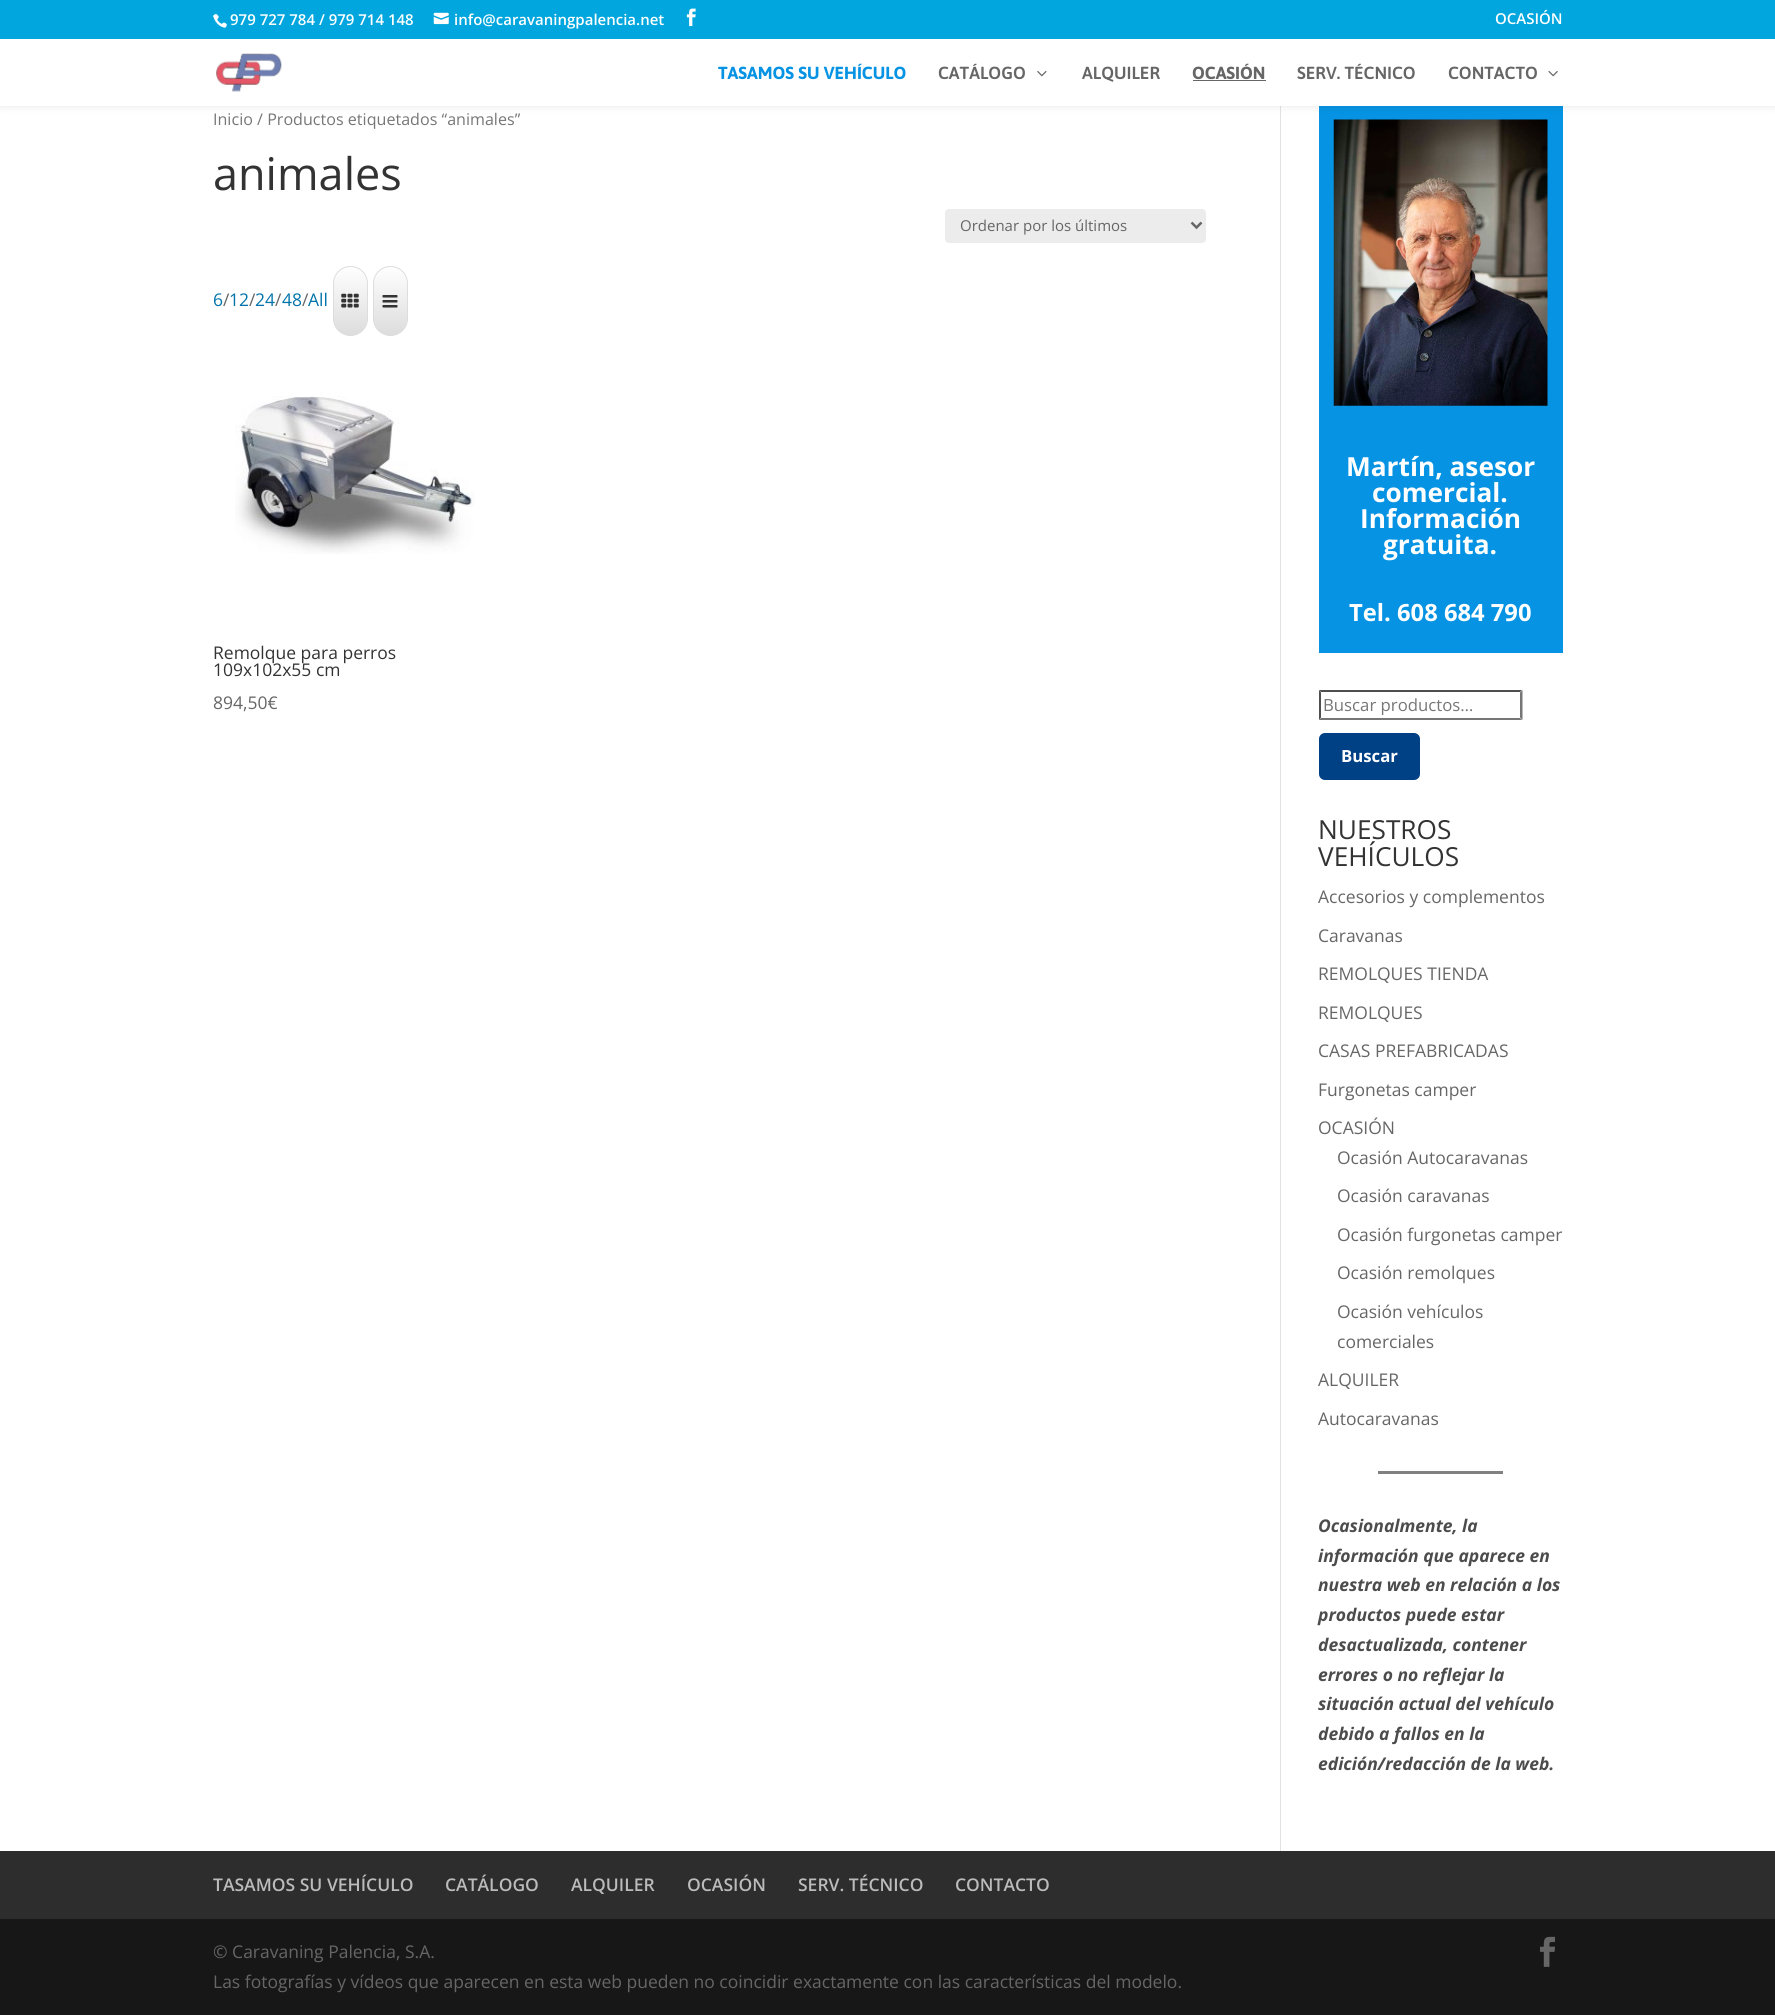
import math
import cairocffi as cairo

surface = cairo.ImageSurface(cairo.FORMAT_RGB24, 1775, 2015)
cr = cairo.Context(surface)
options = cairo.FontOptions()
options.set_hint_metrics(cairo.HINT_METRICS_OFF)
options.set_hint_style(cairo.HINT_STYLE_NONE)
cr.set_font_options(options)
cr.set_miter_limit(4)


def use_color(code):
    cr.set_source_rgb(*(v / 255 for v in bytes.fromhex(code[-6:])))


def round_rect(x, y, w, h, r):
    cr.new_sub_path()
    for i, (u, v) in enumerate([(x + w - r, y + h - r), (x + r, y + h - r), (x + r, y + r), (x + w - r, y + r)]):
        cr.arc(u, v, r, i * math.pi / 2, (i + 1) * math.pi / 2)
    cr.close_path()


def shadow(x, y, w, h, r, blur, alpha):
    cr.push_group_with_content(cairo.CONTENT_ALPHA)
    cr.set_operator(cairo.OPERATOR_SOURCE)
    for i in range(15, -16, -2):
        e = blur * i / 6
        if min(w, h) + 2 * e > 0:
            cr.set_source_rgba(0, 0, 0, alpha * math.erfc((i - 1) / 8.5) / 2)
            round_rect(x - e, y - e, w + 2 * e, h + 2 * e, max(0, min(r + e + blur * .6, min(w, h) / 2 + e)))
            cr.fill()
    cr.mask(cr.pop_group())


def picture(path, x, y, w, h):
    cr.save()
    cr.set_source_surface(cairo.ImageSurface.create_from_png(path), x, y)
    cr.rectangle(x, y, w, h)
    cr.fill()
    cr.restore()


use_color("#ffffff")
cr.paint()
use_color("#e2e2e2")
cr.rectangle(1280, 106, 1, 1745)
cr.fill()
use_color("#0693e3")
cr.rectangle(1319, 106, 244, 547)
cr.fill()
picture("img10.png", 1333, 119, 215, 287)
use_color("#000000")
shadow(0, 39, 1775, 67, 0, 4.5, 0.1)
use_color("#00a6dd")
cr.rectangle(0, 0, 1775, 39)
cr.fill()
picture("img1.png", 213, 14, 14, 14)
cr.select_font_face("Open Sans SemiBold")
cr.set_font_size(15)
use_color("#ffffff")
cr.move_to(230, 25)
cr.show_text("979 727 784 / 979 714 148")
picture("img2.png", 433, 12, 16, 13)
cr.move_to(454, 25)
cr.show_text("info@caravaningpalencia.net")
picture("img3.png", 686, 8, 10, 19)
cr.move_to(1495, 24)
cr.show_text("OCASIÓN")
cr.rectangle(0, 39, 1775, 67)
cr.fill()
picture("img4.png", 216, 53, 66, 39)
cr.select_font_face("Asap", cairo.FONT_SLANT_NORMAL, cairo.FONT_WEIGHT_BOLD)
cr.set_font_size(17.5)
use_color("#0693e3")
cr.move_to(718, 79)
cr.show_text("TASAMOS SU VEHÍCULO")
cr.select_font_face("Asap SemiBold")
use_color("#666666")
cr.move_to(938, 79)
cr.show_text("CATÁLOGO")
picture("img5.png", 1037, 71, 10, 6)
cr.move_to(1082, 79)
cr.show_text("ALQUILER")
cr.select_font_face("Asap", cairo.FONT_SLANT_NORMAL, cairo.FONT_WEIGHT_BOLD)
cr.move_to(1192, 79)
cr.show_text("OCASIÓN")
cr.rectangle(1193, 80, 73, 1)
cr.fill()
cr.select_font_face("Asap SemiBold")
cr.move_to(1297, 79)
cr.show_text("SERV. TÉCNICO")
cr.move_to(1448, 79)
cr.show_text("CONTACTO")
picture("img6.png", 1548, 71, 10, 6)
cr.select_font_face("Open Sans")
cr.set_font_size(16.1)
use_color("#767676")
cr.move_to(213, 125)
cr.show_text("Inicio / Productos etiquetados “animales”")
cr.set_font_size(45)
use_color("#333333")
cr.move_to(213, 190)
cr.show_text("animales")
use_color("#ececec")
round_rect(945, 209, 261, 34, 4)
cr.fill()
cr.new_path()
cr.move_to(1191.5, 222.5)
cr.line_to(1196.5, 227.5)
cr.line_to(1201.5, 222.5)
use_color("#666666")
cr.set_line_width(2.5)
cr.stroke()
cr.set_font_size(15)
cr.move_to(960, 231)
cr.show_text("Ordenar por los últimos")
cr.set_font_size(17.5)
use_color("#0073aa")
cr.move_to(213, 306)
cr.show_text("6")
use_color("#666666")
cr.move_to(223, 306)
cr.show_text("/")
use_color("#0073aa")
cr.move_to(229, 306)
cr.show_text("12")
use_color("#666666")
cr.move_to(249, 306)
cr.show_text("/")
use_color("#0073aa")
cr.move_to(255, 306)
cr.show_text("24")
use_color("#666666")
cr.move_to(275, 306)
cr.show_text("/")
use_color("#0073aa")
cr.move_to(282, 306)
cr.show_text("48")
use_color("#666666")
cr.move_to(302, 306)
cr.show_text("/")
use_color("#0073aa")
cr.move_to(308, 306)
cr.show_text("All")
gradient = cairo.LinearGradient(350, 266, 350, 336)
gradient.add_color_stop_rgba(0, 1, 1, 1, 1)
gradient.add_color_stop_rgba(1, 0.863, 0.863, 0.863, 1)
cr.set_source(gradient)
round_rect(333.5, 266.5, 34, 69, 17)
cr.fill_preserve()
use_color("#dddddd")
cr.set_line_width(1)
cr.stroke()
picture("img7.png", 341, 293, 18, 15)
gradient = cairo.LinearGradient(390, 266, 390, 336)
gradient.add_color_stop_rgba(0, 1, 1, 1, 1)
gradient.add_color_stop_rgba(1, 0.863, 0.863, 0.863, 1)
cr.set_source(gradient)
round_rect(373.5, 266.5, 34, 69, 17)
cr.fill_preserve()
use_color("#dddddd")
cr.stroke()
picture("img8.png", 382, 295, 16, 13)
picture("img9.png", 235, 396, 240, 158)
use_color("#333333")
cr.move_to(213, 659)
cr.show_text("Remolque para perros")
cr.move_to(213, 676)
cr.show_text("109x102x55 cm")
use_color("#666666")
cr.move_to(213, 709)
cr.show_text("894,50€")
cr.select_font_face("Open Sans", cairo.FONT_SLANT_NORMAL, cairo.FONT_WEIGHT_BOLD)
cr.set_font_size(26.25)
use_color("#ffffff")
cr.move_to(1346, 476)
cr.show_text("Martín, asesor")
cr.move_to(1372, 502)
cr.show_text("comercial.")
cr.move_to(1360, 528)
cr.show_text("Información")
cr.move_to(1383, 554)
cr.show_text("gratuita.")
cr.set_font_size(23.75)
cr.move_to(1349, 621)
cr.show_text("Tel. 608 684 790")
use_color("#4f4f4f")
cr.new_path()
cr.move_to(1319, 690)
cr.line_to(1522, 690)
cr.line_to(1520, 692)
cr.line_to(1321, 692)
cr.close_path()
cr.fill()
use_color("#767676")
cr.new_path()
cr.move_to(1522.5, 690)
cr.line_to(1522.5, 720)
cr.line_to(1520, 717.5)
cr.line_to(1520, 692.5)
cr.close_path()
cr.fill()
cr.new_path()
cr.move_to(1522, 720)
cr.line_to(1319, 720)
cr.line_to(1321, 718)
cr.line_to(1520, 718)
cr.close_path()
cr.fill()
use_color("#4f4f4f")
cr.new_path()
cr.move_to(1319, 720)
cr.line_to(1319, 690)
cr.line_to(1321, 692.5)
cr.line_to(1321, 717.5)
cr.close_path()
cr.fill()
cr.select_font_face("Open Sans")
cr.set_font_size(16.75)
use_color("#767676")
cr.move_to(1323, 711)
cr.show_text("Buscar productos…")
use_color("#004085")
round_rect(1319, 733, 101, 47, 6)
cr.fill()
cr.select_font_face("Open Sans", cairo.FONT_SLANT_NORMAL, cairo.FONT_WEIGHT_BOLD)
use_color("#ffffff")
cr.move_to(1341, 762)
cr.show_text("Buscar")
cr.select_font_face("Open Sans")
cr.set_font_size(26.25)
use_color("#333333")
cr.move_to(1318, 839)
cr.show_text("NUESTROS")
cr.move_to(1318, 866)
cr.show_text("VEHÍCULOS")
cr.set_font_size(17.5)
use_color("#666666")
cr.move_to(1318, 903)
cr.show_text("Accesorios y complementos")
cr.move_to(1318, 942)
cr.show_text("Caravanas")
cr.move_to(1318, 980)
cr.show_text("REMOLQUES TIENDA")
cr.move_to(1318, 1019)
cr.show_text("REMOLQUES")
cr.move_to(1318, 1057)
cr.show_text("CASAS PREFABRICADAS")
cr.move_to(1318, 1096)
cr.show_text("Furgonetas camper")
cr.move_to(1318, 1134)
cr.show_text("OCASIÓN")
cr.move_to(1337, 1164)
cr.show_text("Ocasión Autocaravanas")
cr.move_to(1337, 1202)
cr.show_text("Ocasión caravanas")
cr.move_to(1337, 1241)
cr.show_text("Ocasión furgonetas camper")
cr.move_to(1337, 1279)
cr.show_text("Ocasión remolques")
cr.move_to(1337, 1318)
cr.show_text("Ocasión vehículos")
cr.move_to(1337, 1348)
cr.show_text("comerciales")
cr.move_to(1318, 1386)
cr.show_text("ALQUILER")
cr.move_to(1318, 1425)
cr.show_text("Autocaravanas")
use_color("#808080")
cr.rectangle(1378, 1471, 125, 3)
cr.fill()
cr.select_font_face("Open Sans", cairo.FONT_SLANT_ITALIC, cairo.FONT_WEIGHT_BOLD)
use_color("#4c4c4c")
cr.move_to(1318, 1532)
cr.show_text("Ocasionalmente, la")
cr.move_to(1318, 1562)
cr.show_text("información que aparece en")
cr.move_to(1318, 1591)
cr.show_text("nuestra web en relación a los")
cr.move_to(1318, 1621)
cr.show_text("productos puede estar")
cr.move_to(1318, 1651)
cr.show_text("desactualizada, contener")
cr.move_to(1318, 1681)
cr.show_text("errores o no reflejar la")
cr.move_to(1318, 1710)
cr.show_text("situación actual del vehículo")
cr.move_to(1318, 1740)
cr.show_text("debido a fallos en la")
cr.move_to(1318, 1770)
cr.show_text("edición/redacción de la web.")
use_color("#2d2d2d")
cr.rectangle(0, 1851, 1775, 68)
cr.fill()
cr.select_font_face("Open Sans SemiBold")
use_color("#bbbbbb")
cr.move_to(213, 1891)
cr.show_text("TASAMOS SU VEHÍCULO")
cr.move_to(445, 1891)
cr.show_text("CATÁLOGO")
cr.move_to(571, 1891)
cr.show_text("ALQUILER")
cr.move_to(687, 1891)
cr.show_text("OCASIÓN")
cr.move_to(798, 1891)
cr.show_text("SERV. TÉCNICO")
cr.move_to(955, 1891)
cr.show_text("CONTACTO")
use_color("#171717")
cr.rectangle(0, 1919, 1775, 96)
cr.fill()
cr.select_font_face("Open Sans")
use_color("#666666")
cr.move_to(213, 1958)
cr.show_text("© Caravaning Palencia, S.A.")
cr.move_to(213, 1988)
cr.show_text("Las fotografías y vídeos que aparecen en esta web pueden no coincidir exactamente con las características del modelo.")
picture("img11.png", 1540, 1936, 15, 31)
surface.write_to_png("result.png")
